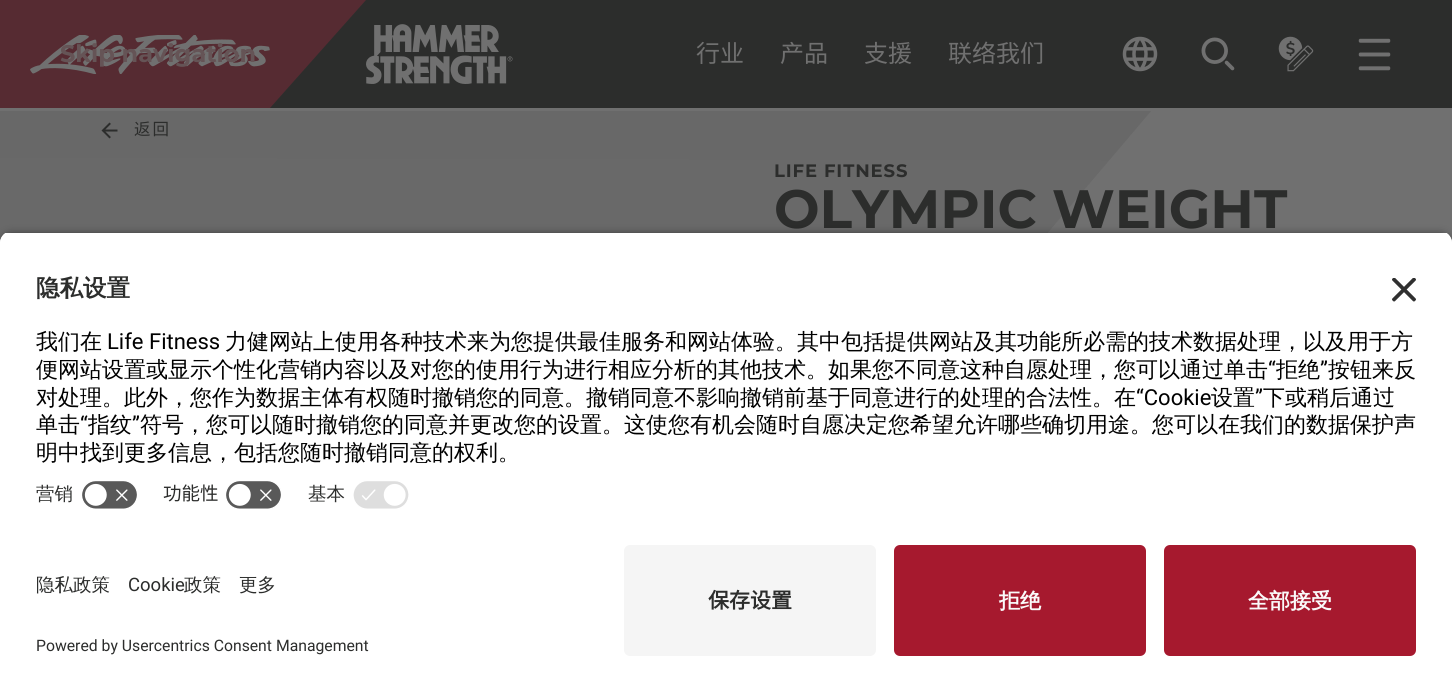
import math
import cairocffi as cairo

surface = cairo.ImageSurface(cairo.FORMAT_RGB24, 1452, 691)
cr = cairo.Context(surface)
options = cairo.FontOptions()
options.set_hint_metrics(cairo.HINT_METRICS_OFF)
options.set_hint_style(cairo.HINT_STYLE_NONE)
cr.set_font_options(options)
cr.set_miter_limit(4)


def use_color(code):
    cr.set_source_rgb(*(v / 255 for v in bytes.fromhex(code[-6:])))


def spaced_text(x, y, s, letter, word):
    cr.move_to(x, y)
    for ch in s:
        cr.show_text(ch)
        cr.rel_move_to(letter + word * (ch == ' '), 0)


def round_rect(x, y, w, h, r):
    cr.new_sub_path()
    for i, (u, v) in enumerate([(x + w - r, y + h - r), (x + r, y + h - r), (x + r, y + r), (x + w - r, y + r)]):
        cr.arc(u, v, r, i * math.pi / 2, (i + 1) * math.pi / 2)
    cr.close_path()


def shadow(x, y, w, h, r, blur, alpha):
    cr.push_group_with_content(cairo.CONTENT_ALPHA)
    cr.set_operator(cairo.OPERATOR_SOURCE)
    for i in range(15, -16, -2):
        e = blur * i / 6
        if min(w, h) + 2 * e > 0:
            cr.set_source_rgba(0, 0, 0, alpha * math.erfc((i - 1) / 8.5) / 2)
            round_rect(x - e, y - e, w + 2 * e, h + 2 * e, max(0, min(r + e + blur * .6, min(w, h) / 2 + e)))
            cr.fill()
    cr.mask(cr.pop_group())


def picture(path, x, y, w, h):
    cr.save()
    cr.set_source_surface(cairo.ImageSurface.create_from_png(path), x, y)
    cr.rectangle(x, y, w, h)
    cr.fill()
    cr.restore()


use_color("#707070")
cr.paint()
use_color("#2c2d2c")
cr.rectangle(270, 0, 1182, 108)
cr.fill()
use_color("#562b32")
cr.new_path()
cr.move_to(0, 0)
cr.line_to(0, 108)
cr.line_to(270, 108)
cr.line_to(366, 0)
cr.close_path()
cr.fill()
picture("img1.png", 30, 35, 240, 39)
picture("img2.png", 366, 24, 147, 60)
cr.select_font_face("Noto Sans CJK SC")
cr.set_font_size(24)
use_color("#707070")
cr.move_to(696, 62)
cr.show_text("行业")
cr.move_to(780, 62)
cr.show_text("产品")
cr.move_to(864, 62)
cr.show_text("支援")
cr.move_to(948, 62)
cr.show_text("联络我们")
picture("img3.png", 1122, 36, 36, 36)
picture("img4.png", 1201, 37, 34, 34)
picture("img5.png", 1278, 36, 36, 36)
picture("img6.png", 1358, 38, 33, 33)
cr.select_font_face("Montserrat", cairo.FONT_SLANT_NORMAL, cairo.FONT_WEIGHT_BOLD)
use_color("#655456")
cr.move_to(60, 62)
cr.show_text("Skip navigation")
cr.save()
cr.rectangle(0, 111, 1154, 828)
cr.clip()
gradient = cairo.LinearGradient(576, 111, 574, 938)
gradient.add_color_stop_rgba(0, 0.408, 0.408, 0.408, 1)
gradient.add_color_stop_rgba(1, 0.439, 0.439, 0.439, 1)
cr.set_source(gradient)
cr.new_path()
cr.move_to(0, 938)
cr.line_to(449, 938)
cr.line_to(1152, 110)
cr.line_to(0, 110)
cr.close_path()
cr.fill()
cr.restore()
picture("img7.png", 101, 122, 17, 17)
cr.select_font_face("Noto Sans CJK SC")
cr.set_font_size(16.5)
use_color("#2c2d2c")
spaced_text(134, 135, "返回", 2, 0)
cr.select_font_face("Montserrat", cairo.FONT_SLANT_NORMAL, cairo.FONT_WEIGHT_BOLD)
cr.set_font_size(18)
spaced_text(774, 177, "LIFE FITNESS", 0.9, 0)
cr.set_font_size(54)
cr.move_to(774, 228)
cr.show_text("OLYMPIC WEIGHT")
use_color("#000000")
shadow(0, 236, 1452, 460, 12, 5, 0.8)
cr.save()
cr.new_path()
cr.move_to(12, 231)
cr.line_to(1440, 231)
cr.curve_to(1446.5, 231, 1452, 236.5, 1452, 243)
cr.line_to(1452, 533)
cr.line_to(0, 533)
cr.line_to(0, 243)
cr.curve_to(0, 236.5, 5.5, 231, 12, 231)
cr.close_path()
cr.clip()
use_color("#ffffff")
cr.rectangle(0, 233, 1452, 300)
cr.fill()
cr.rectangle(0, 233, 1452, 240)
cr.fill()
cr.restore()
cr.select_font_face("WenQuanYi Zen Hei", cairo.FONT_SLANT_NORMAL, cairo.FONT_WEIGHT_BOLD)
cr.set_font_size(23.5)
use_color("#2c2d2c")
cr.move_to(36, 296)
cr.show_text("隐私设置")
picture("img8.png", 1392, 278, 24, 24)
cr.select_font_face("WenQuanYi Zen Hei Medium")
cr.set_font_size(22)
use_color("#000000")
cr.move_to(36, 349)
cr.show_text("我们在")
cr.select_font_face("Roboto")
cr.move_to(107, 349)
cr.show_text("Life Fitness")
cr.select_font_face("WenQuanYi Zen Hei Medium")
cr.move_to(225, 349)
cr.show_text("力健网站上使用各种技术来为您提供最佳服务和网站体验。其中包括提供网站及其功能所必需的技术数据处理，以及用于方")
cr.move_to(36, 377)
cr.show_text("便网站设置或显示个性化营销内容以及对您的使用行为进行相应分析的其他技术。如果您不同意这种自愿处理，您可以通过单击")
cr.select_font_face("Roboto")
cr.move_to(1268, 377)
cr.show_text("“")
cr.select_font_face("WenQuanYi Zen Hei Medium")
cr.move_to(1276, 377)
cr.show_text("拒绝")
cr.select_font_face("Roboto")
cr.move_to(1320, 377)
cr.show_text("”")
cr.select_font_face("WenQuanYi Zen Hei Medium")
cr.move_to(1328, 377)
cr.show_text("按钮来反")
cr.move_to(36, 405)
cr.show_text("对处理。此外，您作为数据主体有权随时撤销您的同意。撤销同意不影响撤销前基于同意进行的处理的合法性。在")
cr.select_font_face("Roboto")
cr.move_to(1136, 405)
cr.show_text("“Cookie")
cr.select_font_face("WenQuanYi Zen Hei Medium")
cr.move_to(1211, 405)
cr.show_text("设置")
cr.select_font_face("Roboto")
cr.move_to(1255, 405)
cr.show_text("”")
cr.select_font_face("WenQuanYi Zen Hei Medium")
cr.move_to(1263, 405)
cr.show_text("下或稍后通过")
cr.move_to(36, 432)
cr.show_text("单击")
cr.select_font_face("Roboto")
cr.move_to(80, 432)
cr.show_text("“")
cr.select_font_face("WenQuanYi Zen Hei Medium")
cr.move_to(88, 432)
cr.show_text("指纹")
cr.select_font_face("Roboto")
cr.move_to(132, 432)
cr.show_text("”")
cr.select_font_face("WenQuanYi Zen Hei Medium")
cr.move_to(140, 432)
cr.show_text("符号，您可以随时撤销您的同意并更改您的设置。这使您有机会随时自愿决定您希望允许哪些确切用途。您可以在我们的数据保护声")
cr.move_to(36, 460)
cr.show_text("明中找到更多信息，包括您随时撤销同意的权利。")
cr.set_font_size(18.5)
use_color("#2c2d2c")
cr.move_to(36, 500)
cr.show_text("营销")
picture("img9.png", 82, 481, 55, 28)
cr.select_font_face("Noto Sans CJK SC")
cr.move_to(163, 500)
cr.show_text("功能性")
picture("img9.png", 226, 481, 55, 28)
cr.select_font_face("WenQuanYi Zen Hei Medium")
cr.move_to(308, 500)
cr.show_text("基本")
picture("img10.png", 353, 481, 56, 28)
use_color("#ffffff")
cr.rectangle(0, 533, 1452, 158)
cr.fill()
use_color("#2c2d2c")
cr.move_to(36, 591)
cr.show_text("隐私政策")
cr.select_font_face("Roboto")
cr.move_to(128, 591)
cr.show_text("Cookie")
cr.select_font_face("WenQuanYi Zen Hei Medium")
cr.move_to(184, 591)
cr.show_text("政策")
cr.move_to(239, 591)
cr.show_text("更多")
cr.select_font_face("Roboto")
cr.set_font_size(15.75)
cr.move_to(36, 651)
cr.show_text("Powered by Usercentrics Consent Management")
use_color("#f5f5f5")
round_rect(624, 545, 252, 111, 6)
cr.fill()
cr.select_font_face("Noto Sans CJK SC", cairo.FONT_SLANT_NORMAL, cairo.FONT_WEIGHT_BOLD)
cr.set_font_size(21)
use_color("#2c2d2c")
cr.move_to(708, 608)
cr.show_text("保存设置")
use_color("#a6192e")
round_rect(894, 545, 252, 111, 6)
cr.fill()
cr.select_font_face("WenQuanYi Zen Hei", cairo.FONT_SLANT_NORMAL, cairo.FONT_WEIGHT_BOLD)
use_color("#fafafa")
cr.move_to(999, 608)
cr.show_text("拒绝")
use_color("#a6192e")
round_rect(1164, 545, 252, 111, 6)
cr.fill()
use_color("#fafafa")
cr.move_to(1248, 608)
cr.show_text("全部接受")
surface.write_to_png("result.png")
